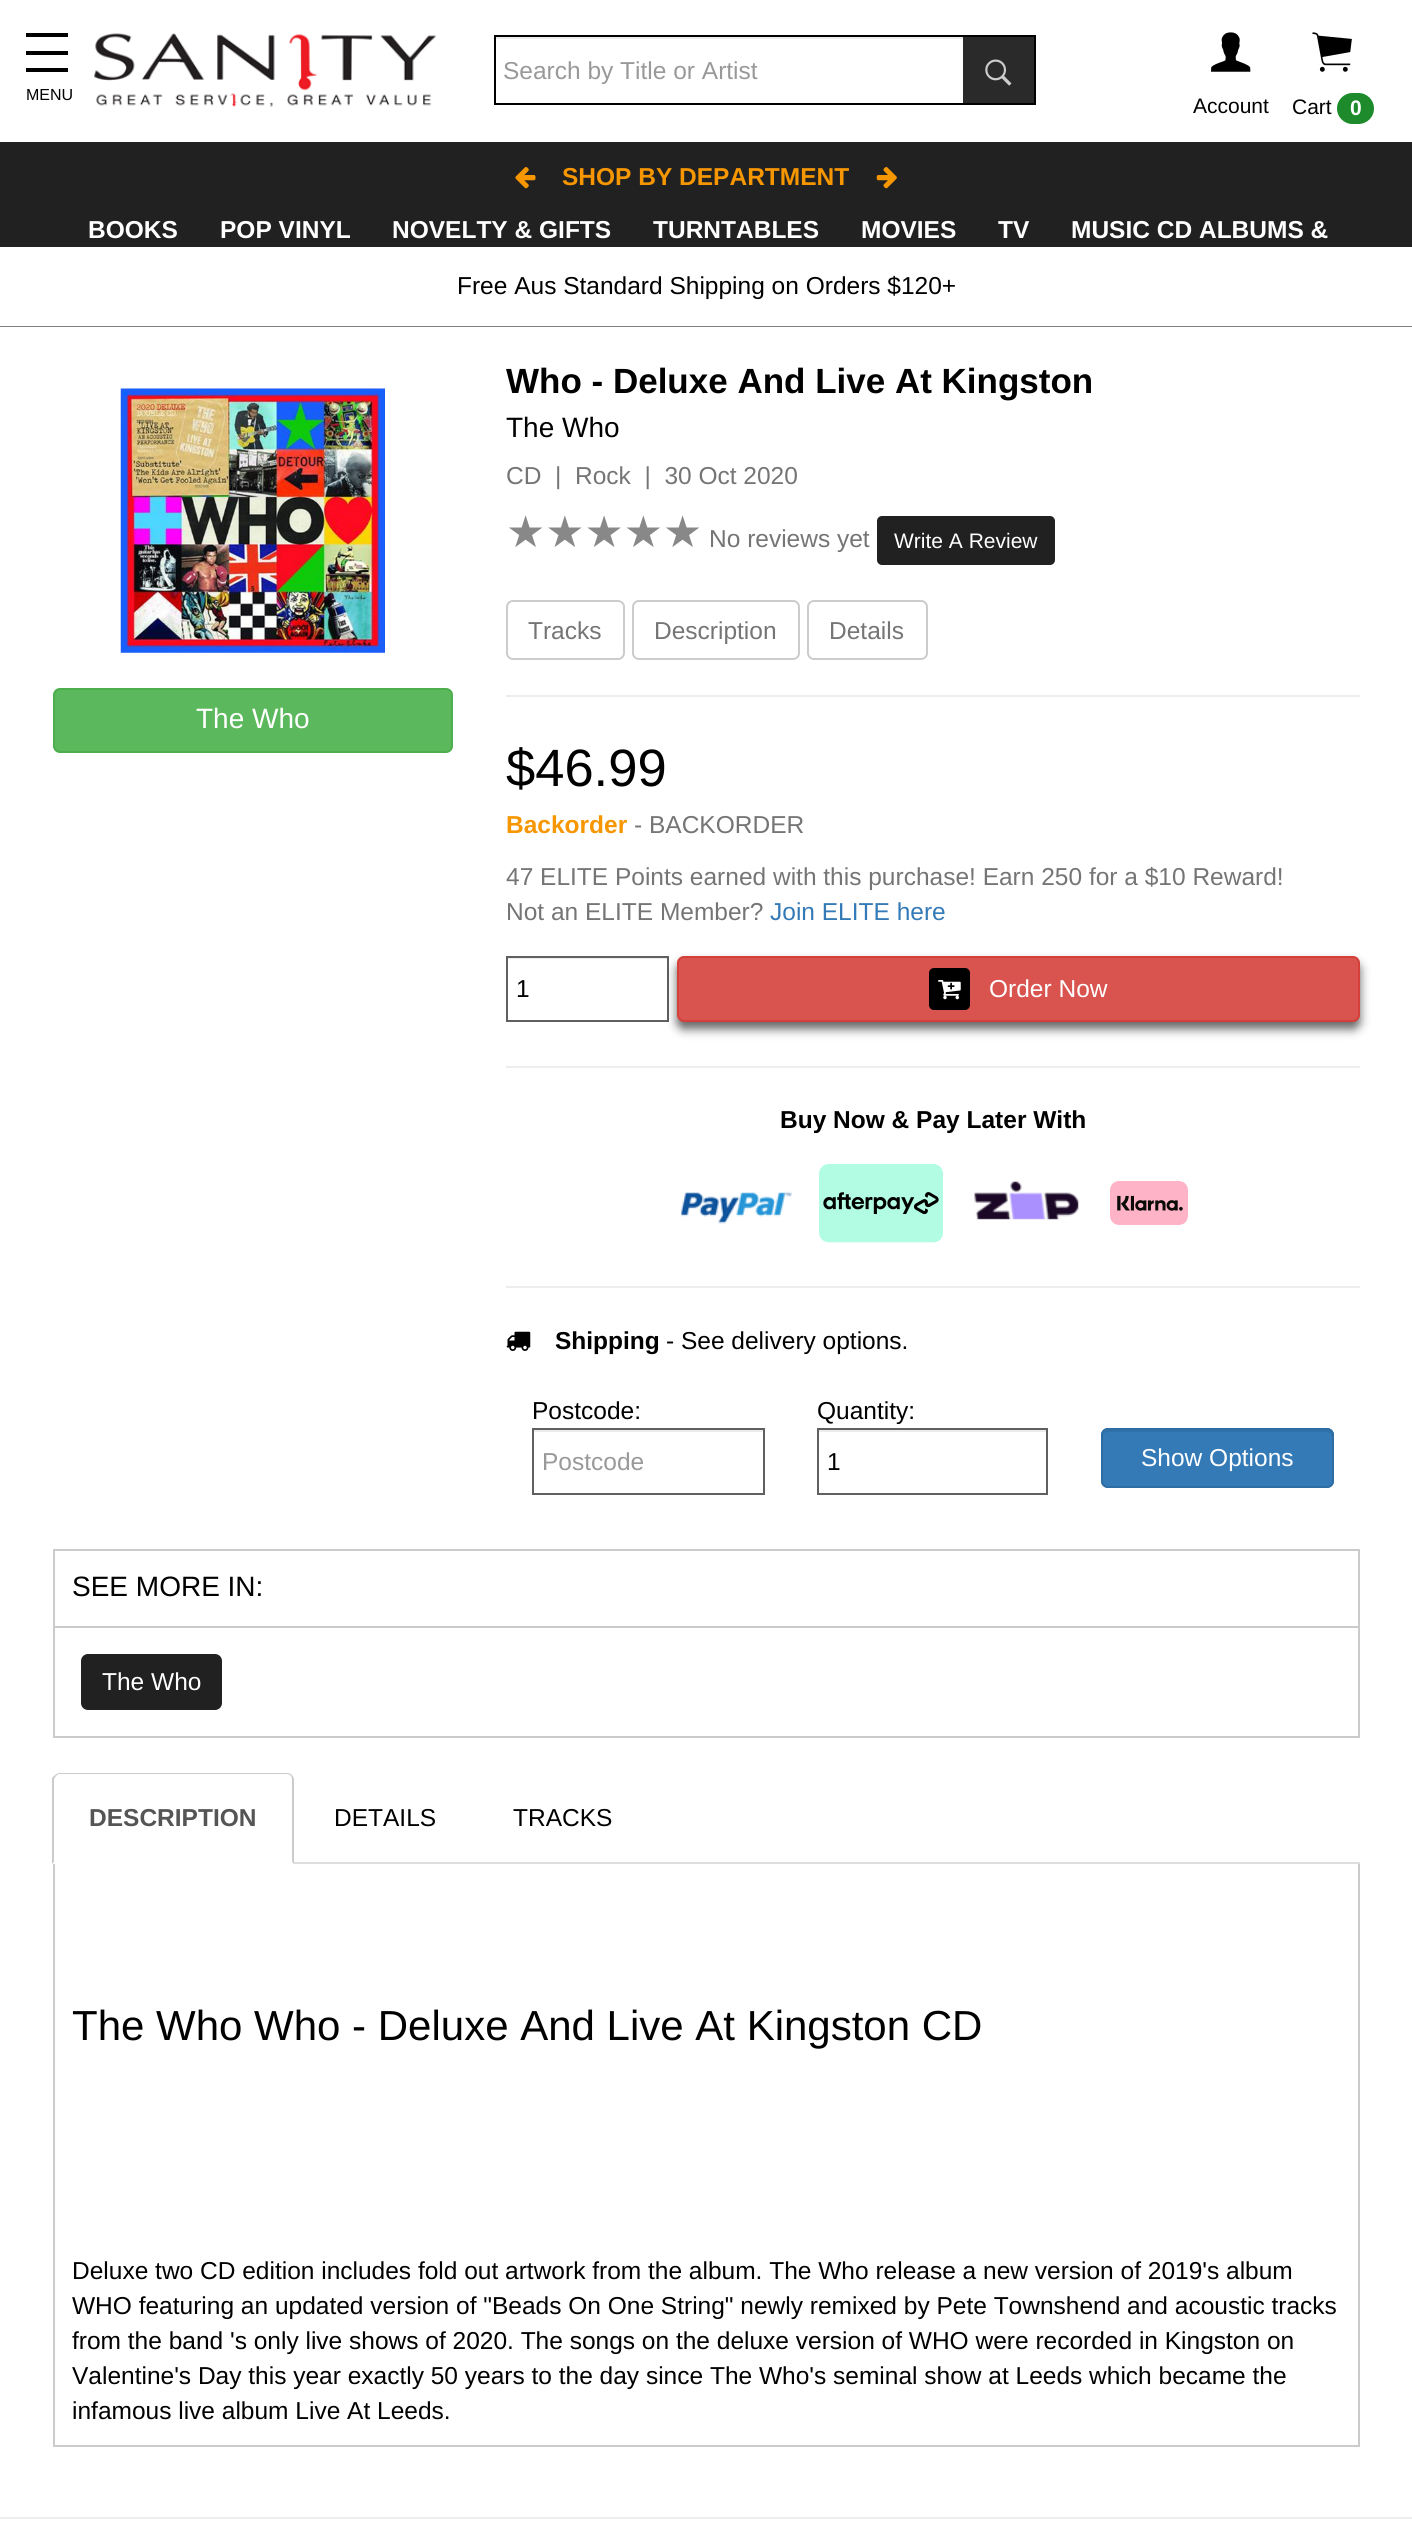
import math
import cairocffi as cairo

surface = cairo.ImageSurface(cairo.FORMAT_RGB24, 1412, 2545)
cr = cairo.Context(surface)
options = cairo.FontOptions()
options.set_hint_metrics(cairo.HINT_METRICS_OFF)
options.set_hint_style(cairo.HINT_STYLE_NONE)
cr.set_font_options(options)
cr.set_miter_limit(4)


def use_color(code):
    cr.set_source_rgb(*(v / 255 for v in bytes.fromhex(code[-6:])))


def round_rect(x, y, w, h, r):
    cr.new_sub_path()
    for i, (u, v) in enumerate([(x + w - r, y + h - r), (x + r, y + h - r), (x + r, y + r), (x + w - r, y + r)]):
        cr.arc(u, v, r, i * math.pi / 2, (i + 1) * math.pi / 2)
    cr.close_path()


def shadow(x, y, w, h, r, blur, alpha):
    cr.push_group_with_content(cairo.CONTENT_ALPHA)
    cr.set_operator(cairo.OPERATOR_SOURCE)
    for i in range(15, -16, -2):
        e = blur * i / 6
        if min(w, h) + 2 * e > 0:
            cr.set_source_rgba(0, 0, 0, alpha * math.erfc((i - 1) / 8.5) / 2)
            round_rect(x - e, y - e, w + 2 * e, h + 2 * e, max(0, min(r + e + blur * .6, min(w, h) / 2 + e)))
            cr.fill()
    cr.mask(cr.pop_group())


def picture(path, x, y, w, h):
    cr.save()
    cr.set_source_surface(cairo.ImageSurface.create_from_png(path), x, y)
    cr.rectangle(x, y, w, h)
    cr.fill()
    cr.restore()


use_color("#ffffff")
cr.paint()
picture("img1.png", 94, 33, 342, 75)
use_color("#000000")
cr.rectangle(494, 35, 542, 2)
cr.fill()
cr.rectangle(494, 103, 542, 2)
cr.fill()
use_color("#ececec")
cr.rectangle(495, 37, 468, 2)
cr.fill()
use_color("#000000")
cr.rectangle(494, 35, 2, 70)
cr.fill()
cr.select_font_face("Liberation Sans")
cr.set_font_size(24.5)
use_color("#999999")
cr.move_to(503, 79)
cr.show_text("Search by Title or Artist")
use_color("#000000")
cr.rectangle(1034, 37, 2, 66)
cr.fill()
use_color("#2a2a2a")
cr.rectangle(963, 37, 71, 66)
cr.fill()
picture("img2.png", 985, 59, 27, 27)
use_color("#000000")
cr.rectangle(26, 51, 42, 4)
cr.fill()
cr.rectangle(26, 33, 42, 4)
cr.fill()
cr.rectangle(26, 68, 42, 4)
cr.fill()
cr.set_font_size(16)
cr.move_to(26, 100)
cr.show_text("MENU")
picture("img3.png", 1211, 32, 40, 40)
cr.set_font_size(21)
cr.move_to(1193, 113)
cr.show_text("Account")
picture("img4.png", 1312, 32, 40, 40)
cr.move_to(1292, 114)
cr.show_text("Cart")
use_color("#1d8b2b")
round_rect(1337, 93, 37, 31, 15.5)
cr.fill()
cr.select_font_face("Liberation Sans", cairo.FONT_SLANT_NORMAL, cairo.FONT_WEIGHT_BOLD)
use_color("#ffffff")
cr.move_to(1350, 115)
cr.show_text("0")
use_color("#212121")
cr.rectangle(0, 142, 1412, 105)
cr.fill()
picture("img5.png", 515, 167, 21, 22)
cr.set_font_size(24.5)
use_color("#f69601")
cr.move_to(562, 185)
cr.show_text("SHOP BY DEPARTMENT")
picture("img6.png", 876, 167, 21, 22)
use_color("#ffffff")
cr.move_to(88, 238)
cr.show_text("BOOKS")
cr.move_to(220, 238)
cr.show_text("POP VINYL")
cr.move_to(392, 238)
cr.show_text("NOVELTY & GIFTS")
cr.move_to(653, 238)
cr.show_text("TURNTABLES")
cr.move_to(861, 238)
cr.show_text("MOVIES")
cr.move_to(998, 238)
cr.show_text("TV")
cr.move_to(1071, 238)
cr.show_text("MUSIC CD ALBUMS &")
use_color("#808080")
cr.rectangle(0, 326, 1412, 1)
cr.fill()
cr.select_font_face("Liberation Sans")
use_color("#000000")
cr.move_to(457, 294)
cr.show_text("Free Aus Standard Shipping on Orders $120+")
picture("img7.png", 120, 388, 265, 265)
use_color("#5cb85c")
round_rect(54, 689, 398, 63, 6)
cr.fill_preserve()
use_color("#4cae4c")
cr.stroke()
cr.set_font_size(28)
use_color("#ffffff")
cr.move_to(196, 728)
cr.show_text("The Who")
cr.select_font_face("Liberation Sans", cairo.FONT_SLANT_NORMAL, cairo.FONT_WEIGHT_BOLD)
cr.set_font_size(35)
use_color("#000000")
cr.move_to(506, 393)
cr.show_text("Who - Deluxe And Live At Kingston")
cr.select_font_face("Liberation Sans")
cr.set_font_size(28)
cr.move_to(506, 437)
cr.show_text("The Who")
cr.set_font_size(24.5)
use_color("#757575")
cr.move_to(506, 484)
cr.show_text("CD  |  Rock  |  30 Oct 2020")
cr.select_font_face("DejaVu Sans")
cr.set_font_size(43.75)
use_color("#888888")
cr.move_to(506, 547)
cr.show_text("★★★★★")
cr.select_font_face("Liberation Sans")
cr.set_font_size(24.5)
use_color("#757575")
cr.move_to(709, 547)
cr.show_text("No reviews yet")
use_color("#212121")
round_rect(877, 516, 178, 49, 5)
cr.fill()
cr.set_font_size(21)
use_color("#ffffff")
cr.move_to(894, 548)
cr.show_text("Write A Review")
round_rect(507, 601, 117, 58, 6)
use_color("#cccccc")
cr.stroke()
cr.set_font_size(24.5)
use_color("#757575")
cr.move_to(528, 639)
cr.show_text("Tracks")
round_rect(633, 601, 166, 58, 6)
use_color("#cccccc")
cr.stroke()
use_color("#757575")
cr.move_to(654, 639)
cr.show_text("Description")
round_rect(808, 601, 119, 58, 6)
use_color("#cccccc")
cr.stroke()
use_color("#757575")
cr.move_to(829, 639)
cr.show_text("Details")
use_color("#eeeeee")
cr.rectangle(506, 695, 854, 2)
cr.fill()
cr.set_font_size(52.5)
use_color("#000000")
cr.move_to(506, 786)
cr.show_text("$46.99")
cr.select_font_face("Liberation Sans", cairo.FONT_SLANT_NORMAL, cairo.FONT_WEIGHT_BOLD)
cr.set_font_size(24.5)
use_color("#f69601")
cr.move_to(506, 833)
cr.show_text("Backorder")
cr.select_font_face("Liberation Sans")
use_color("#757575")
cr.move_to(634, 833)
cr.show_text("- BACKORDER")
cr.move_to(506, 885)
cr.show_text("47 ELITE Points earned with this purchase! Earn 250 for a $10 Reward!")
cr.move_to(506, 920)
cr.show_text("Not an ELITE Member?")
use_color("#337ab7")
cr.move_to(770, 920)
cr.show_text("Join ELITE here")
use_color("#ececec")
cr.rectangle(508, 958, 159, 1)
cr.fill()
cr.rectangle(507, 957, 161, 64)
use_color("#606060")
cr.stroke()
use_color("#000000")
cr.move_to(516, 997)
cr.show_text("1")
use_color("#000000")
shadow(677, 963, 683, 66, 7, 5, 0.61)
use_color("#d9534f")
round_rect(678, 957, 681, 64, 6)
cr.fill_preserve()
use_color("#d43f3a")
cr.stroke()
use_color("#000000")
round_rect(929, 968, 41, 42, 5)
cr.fill()
picture("img8.png", 938, 980, 23, 20)
use_color("#ffffff")
cr.move_to(989, 997)
cr.show_text("Order Now")
use_color("#eeeeee")
cr.rectangle(506, 1066, 854, 2)
cr.fill()
cr.select_font_face("Liberation Sans", cairo.FONT_SLANT_NORMAL, cairo.FONT_WEIGHT_BOLD)
use_color("#000000")
cr.move_to(780, 1128)
cr.show_text("Buy Now & Pay Later With")
picture("img9.png", 678, 1166, 114, 72)
picture("img10.png", 819, 1164, 124, 79)
picture("img11.png", 974, 1181, 105, 39)
picture("img12.png", 1110, 1181, 78, 44)
use_color("#eeeeee")
cr.rectangle(506, 1286, 854, 2)
cr.fill()
picture("img13.png", 506, 1331, 25, 20)
use_color("#000000")
cr.move_to(555, 1349)
cr.show_text("Shipping")
cr.select_font_face("Liberation Sans")
cr.move_to(666, 1349)
cr.show_text("- See delivery options.")
cr.move_to(532, 1419)
cr.show_text("Postcode:")
use_color("#ececec")
cr.rectangle(534, 1430, 229, 2)
cr.fill()
cr.rectangle(533, 1429, 231, 65)
use_color("#606060")
cr.stroke()
use_color("#999999")
cr.move_to(542, 1470)
cr.show_text("Postcode")
use_color("#000000")
cr.move_to(817, 1419)
cr.show_text("Quantity:")
use_color("#ececec")
cr.rectangle(819, 1430, 228, 2)
cr.fill()
cr.rectangle(818, 1429, 229, 65)
use_color("#606060")
cr.stroke()
use_color("#000000")
cr.move_to(827, 1470)
cr.show_text("1")
use_color("#337ab7")
round_rect(1101, 1428, 233, 60, 7)
cr.fill()
use_color("#2f71a9")
cr.new_path()
cr.move_to(1108, 1432)
cr.line_to(1326, 1432)
cr.curve_to(1329, 1432, 1332, 1434, 1332, 1437)
cr.line_to(1332, 1435)
cr.curve_to(1332, 1432, 1330, 1430, 1327, 1430)
cr.line_to(1108, 1430)
cr.curve_to(1106, 1430, 1103, 1432, 1103, 1434)
cr.curve_to(1104, 1433, 1106, 1432, 1108, 1432)
cr.close_path()
cr.fill()
round_rect(1102, 1429, 231, 58, 6)
use_color("#2e6da4")
cr.stroke()
use_color("#ffffff")
cr.move_to(1141, 1466)
cr.show_text("Show Options")
cr.rectangle(54, 1550, 1305, 77)
use_color("#cbcbcb")
cr.stroke()
cr.set_font_size(28)
use_color("#000000")
cr.move_to(72, 1596)
cr.show_text("SEE MORE IN:")
use_color("#cbcbcb")
cr.rectangle(1358, 1628, 2, 110)
cr.fill()
cr.rectangle(53, 1736, 1307, 2)
cr.fill()
cr.rectangle(53, 1628, 2, 110)
cr.fill()
use_color("#212121")
round_rect(81, 1654, 141, 56, 7)
cr.fill()
cr.set_font_size(24.5)
use_color("#ffffff")
cr.move_to(102, 1690)
cr.show_text("The Who")
use_color("#dddddd")
cr.rectangle(294, 1862, 1066, 2)
cr.fill()
use_color("#cbcbcb")
cr.new_path()
cr.move_to(60, 1773)
cr.curve_to(58, 1773, 56, 1774, 55, 1775)
cr.line_to(56, 1776)
cr.curve_to(57, 1775, 58, 1774, 60, 1774)
cr.line_to(287, 1774)
cr.curve_to(289, 1774, 290, 1775, 291, 1776)
cr.line_to(292, 1775)
cr.curve_to(291, 1774, 289, 1773, 287, 1773)
cr.close_path()
cr.fill()
cr.new_path()
cr.move_to(292, 1775)
cr.curve_to(293, 1776, 294, 1778, 294, 1780)
cr.line_to(294, 1864)
cr.line_to(292, 1862)
cr.line_to(292, 1780)
cr.curve_to(292, 1779, 292, 1777, 291, 1776)
cr.close_path()
cr.fill()
cr.new_path()
cr.move_to(52, 1864)
cr.line_to(54, 1862)
cr.line_to(54, 1779)
cr.line_to(56, 1776)
cr.line_to(55, 1775)
cr.line_to(52, 1778)
cr.close_path()
cr.fill()
cr.select_font_face("Liberation Sans", cairo.FONT_SLANT_NORMAL, cairo.FONT_WEIGHT_BOLD)
use_color("#555555")
cr.move_to(89, 1826)
cr.show_text("DESCRIPTION")
cr.select_font_face("Liberation Sans")
use_color("#000000")
cr.move_to(334, 1826)
cr.show_text("DETAILS")
cr.move_to(513, 1826)
cr.show_text("TRACKS")
use_color("#cbcbcb")
cr.rectangle(1358, 1864, 2, 583)
cr.fill()
cr.rectangle(53, 2445, 1307, 2)
cr.fill()
cr.rectangle(53, 1864, 2, 583)
cr.fill()
cr.set_font_size(42)
use_color("#000000")
cr.move_to(72, 2040)
cr.show_text("The Who Who - Deluxe And Live At Kingston CD")
cr.set_font_size(24.5)
cr.move_to(72, 2279)
cr.show_text("Deluxe two CD edition includes fold out artwork from the album. The Who release a new version of 2019's album")
cr.move_to(72, 2314)
cr.show_text("WHO featuring an updated version of \"Beads On One String\" newly remixed by Pete Townshend and acoustic tracks")
cr.move_to(72, 2349)
cr.show_text("from the band 's only live shows of 2020. The songs on the deluxe version of WHO were recorded in Kingston on")
cr.move_to(72, 2384)
cr.show_text("Valentine's Day this year exactly 50 years to the day since The Who's seminal show at Leeds which became the")
cr.move_to(72, 2419)
cr.show_text("infamous live album Live At Leeds.")
use_color("#eeeeee")
cr.rectangle(0, 2517, 1412, 2)
cr.fill()
surface.write_to_png("result.png")
